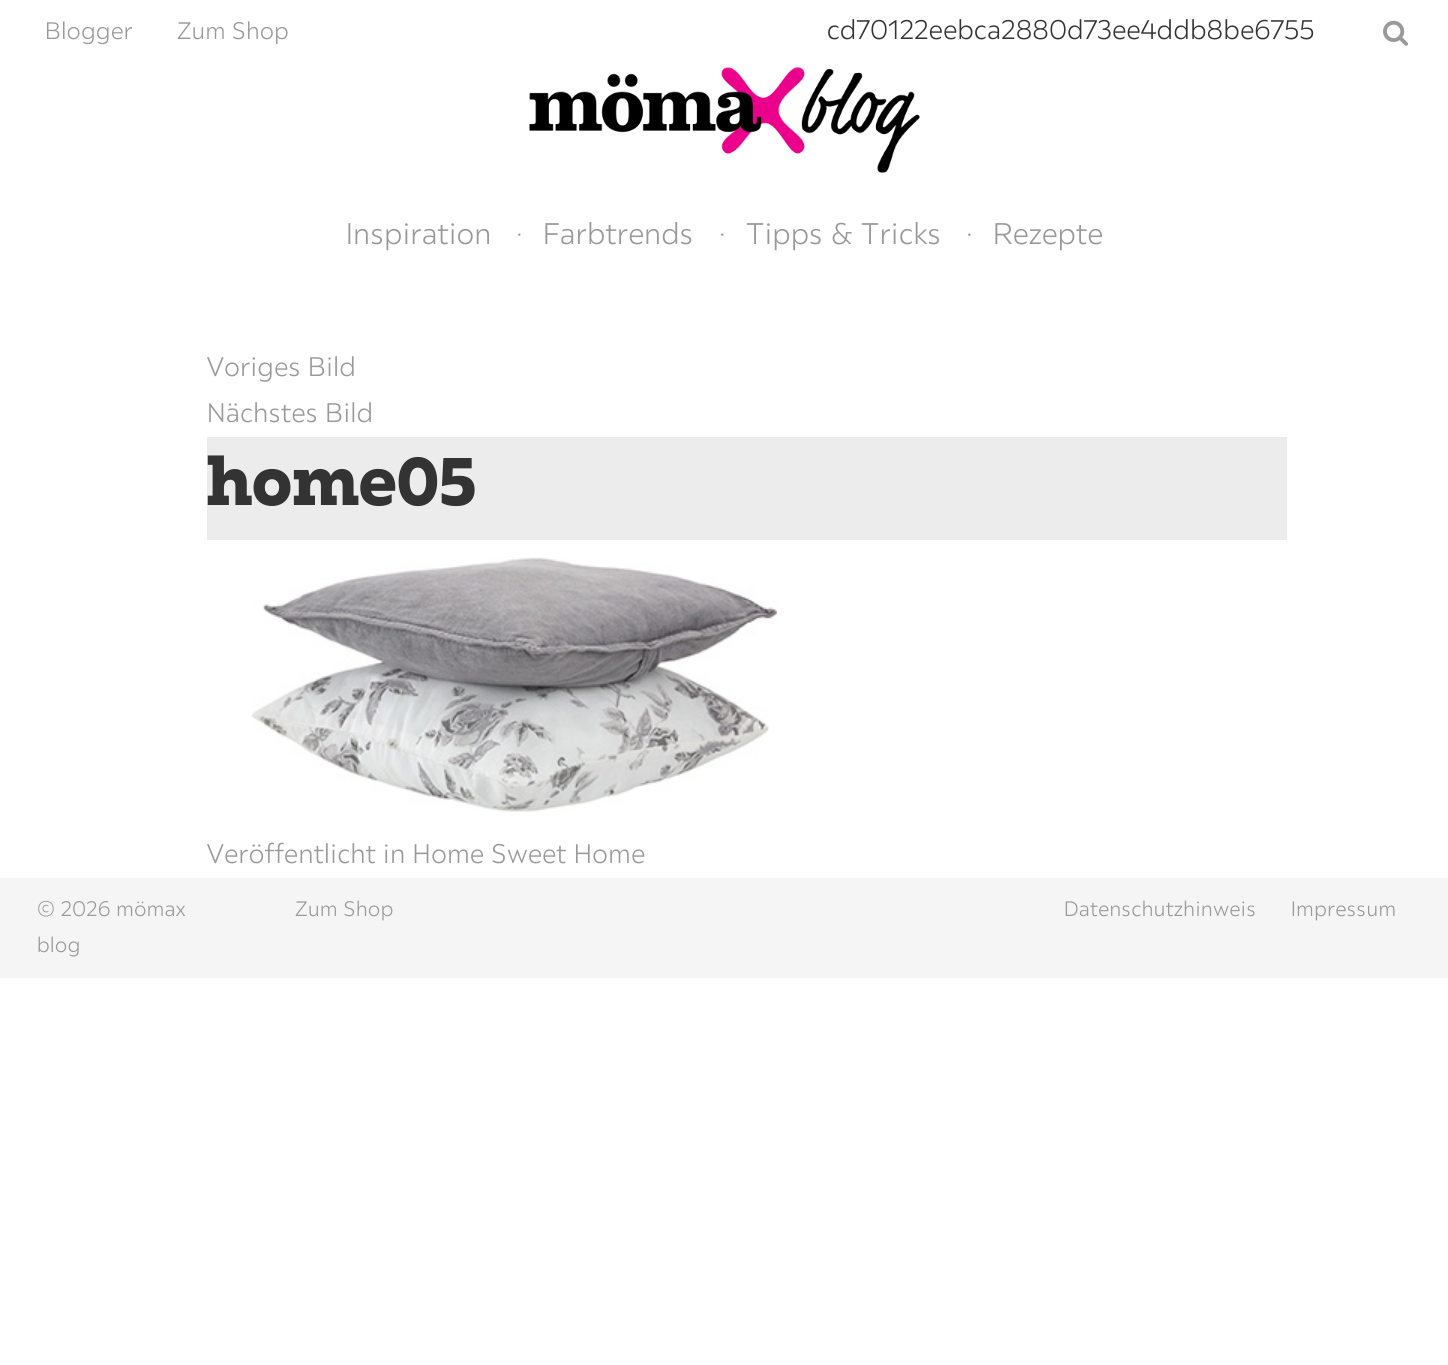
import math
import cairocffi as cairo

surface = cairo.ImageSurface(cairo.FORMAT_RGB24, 1448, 1365)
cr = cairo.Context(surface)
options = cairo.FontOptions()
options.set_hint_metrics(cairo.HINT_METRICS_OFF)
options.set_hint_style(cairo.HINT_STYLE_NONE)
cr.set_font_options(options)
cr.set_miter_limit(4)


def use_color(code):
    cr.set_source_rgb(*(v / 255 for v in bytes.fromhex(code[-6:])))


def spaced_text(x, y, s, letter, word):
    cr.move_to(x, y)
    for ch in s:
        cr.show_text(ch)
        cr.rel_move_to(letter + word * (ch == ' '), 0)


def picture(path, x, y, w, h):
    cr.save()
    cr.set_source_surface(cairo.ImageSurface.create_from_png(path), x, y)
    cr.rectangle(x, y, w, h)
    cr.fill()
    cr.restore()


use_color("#ffffff")
cr.paint()
cr.select_font_face("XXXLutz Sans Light")
cr.set_font_size(24)
use_color("#999999")
spaced_text(45, 39, "Blogger", 0.55, 0)
spaced_text(177, 39, "Zum Shop", 0.55, 0)
cr.set_font_size(27)
use_color("#333333")
spaced_text(827, 39, "cd70122eebca2880d73ee4ddb8be6755", 0.55, 0)
picture("img1.png", 1383, 20, 25, 26)
picture("img2.png", 529, 67, 391, 106)
cr.set_font_size(30)
use_color("#999999")
spaced_text(346, 244, "Inspiration", 0.55, 0)
cr.set_font_size(27)
spaced_text(516, 242, "·", 0.55, 0)
cr.set_font_size(30)
spaced_text(543, 244, "Farbtrends", 0.55, 0)
cr.set_font_size(27)
spaced_text(719, 242, "·", 0.55, 0)
cr.set_font_size(30)
spaced_text(746, 244, "Tipps & Tricks", 0.55, 0)
cr.set_font_size(27)
spaced_text(966, 242, "·", 0.55, 0)
cr.set_font_size(30)
spaced_text(993, 244, "Rezepte", 0.55, 0)
cr.set_font_size(27)
spaced_text(207, 376, "Voriges Bild", 0.55, 0)
spaced_text(207, 422, "Nächstes Bild", 0.55, 0)
use_color("#ececec")
cr.rectangle(207, 437, 1080, 103)
cr.fill()
cr.select_font_face("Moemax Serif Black")
cr.set_font_size(67.5)
use_color("#333333")
spaced_text(207, 505, "home05", 0.55, 0)
picture("img3.png", 252, 557, 525, 255)
cr.select_font_face("XXXLutz Sans Light")
cr.set_font_size(27)
use_color("#999999")
spaced_text(207, 863, "Veröffentlicht in Home Sweet Home", 0.55, 0)
use_color("#f5f5f5")
cr.rectangle(0, 878, 1448, 100)
cr.fill()
cr.set_font_size(21)
use_color("#999999")
spaced_text(37, 916, "© 2026 mömax", 0.55, 0)
spaced_text(37, 952, "blog", 0.55, 0)
spaced_text(295, 916, "Zum Shop", 0.55, 0)
spaced_text(1064, 916, "Datenschutzhinweis", 0.55, 0)
spaced_text(1291, 916, "Impressum", 0.55, 0)
surface.write_to_png("result.png")
